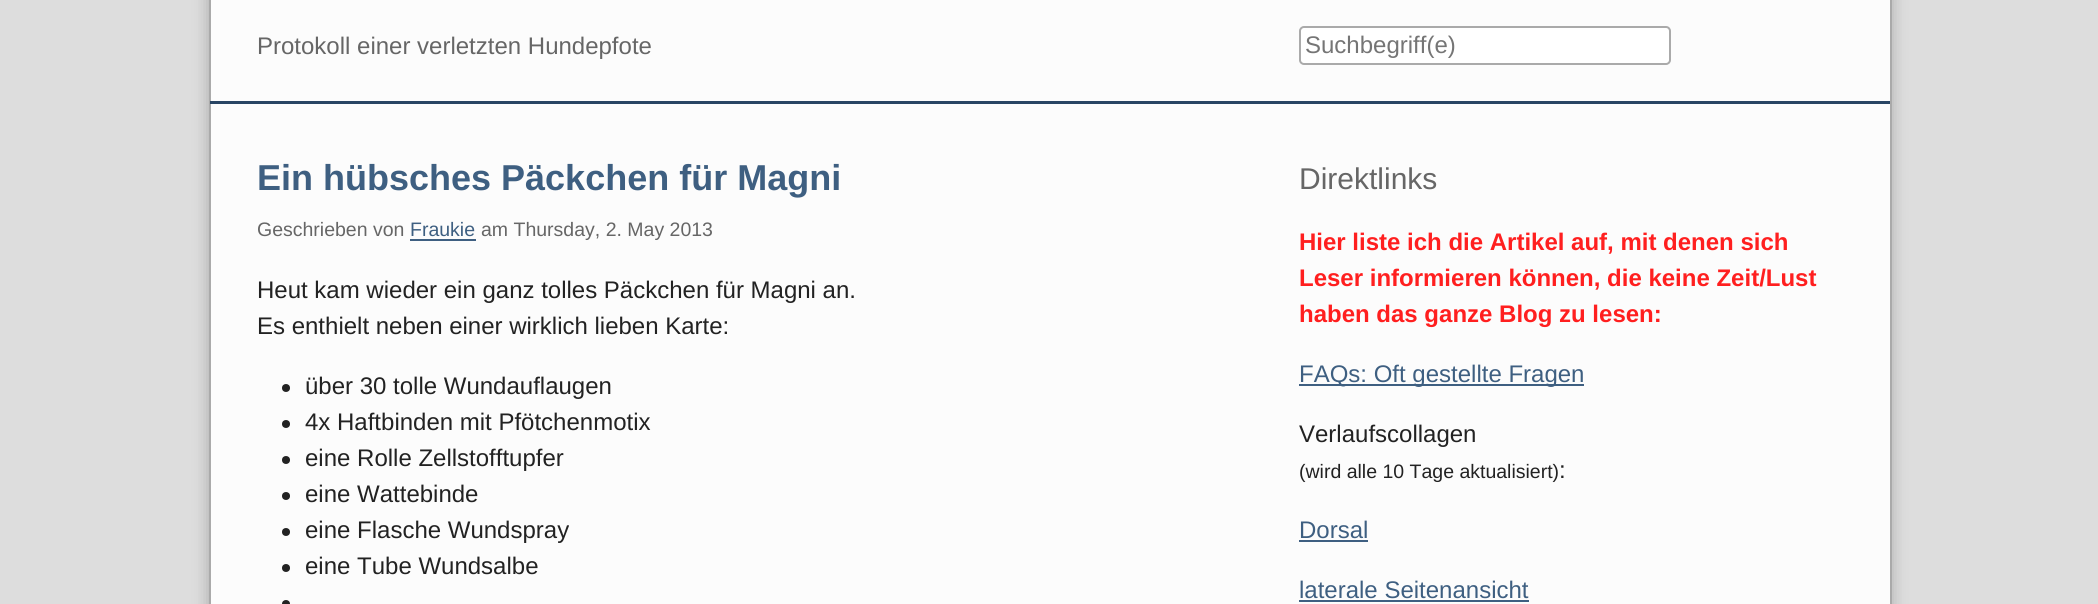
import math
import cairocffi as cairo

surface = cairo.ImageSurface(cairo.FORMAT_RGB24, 2098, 604)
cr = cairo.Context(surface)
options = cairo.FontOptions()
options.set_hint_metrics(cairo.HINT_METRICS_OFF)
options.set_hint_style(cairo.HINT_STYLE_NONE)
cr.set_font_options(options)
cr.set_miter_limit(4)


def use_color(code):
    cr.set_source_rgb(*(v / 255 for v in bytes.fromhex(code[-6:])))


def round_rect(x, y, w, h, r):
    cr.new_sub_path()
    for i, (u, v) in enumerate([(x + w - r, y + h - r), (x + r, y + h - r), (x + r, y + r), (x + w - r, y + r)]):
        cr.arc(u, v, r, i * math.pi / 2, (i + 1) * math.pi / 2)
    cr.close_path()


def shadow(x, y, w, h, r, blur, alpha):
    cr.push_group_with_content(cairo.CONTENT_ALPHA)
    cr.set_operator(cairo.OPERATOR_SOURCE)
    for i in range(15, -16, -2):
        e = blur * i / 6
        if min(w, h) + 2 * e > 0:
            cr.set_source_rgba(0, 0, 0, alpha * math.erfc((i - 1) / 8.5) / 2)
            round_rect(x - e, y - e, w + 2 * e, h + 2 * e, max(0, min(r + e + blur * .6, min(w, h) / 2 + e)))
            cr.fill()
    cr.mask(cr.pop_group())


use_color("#dddddd")
cr.paint()
use_color("#000000")
shadow(207, -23, 1686, 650, 0, 7.5, 0.2)
use_color("#fcfcfc")
cr.rectangle(210, -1, 1681, 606)
cr.fill_preserve()
use_color("#aaaaaa")
cr.stroke()
use_color("#294564")
cr.rectangle(210, 101, 1680, 3)
cr.fill()
cr.select_font_face("Liberation Sans")
cr.set_font_size(24)
use_color("#666666")
cr.move_to(257, 54)
cr.show_text("Protokoll einer verletzten Hundepfote")
use_color("#ffffff")
round_rect(1300, 27, 370, 37, 4)
cr.fill_preserve()
use_color("#aaaaaa")
cr.stroke()
use_color("#757575")
cr.move_to(1305, 53)
cr.show_text("Suchbegriff(e)")
cr.select_font_face("Liberation Sans", cairo.FONT_SLANT_NORMAL, cairo.FONT_WEIGHT_BOLD)
cr.set_font_size(36)
use_color("#3e5f81")
cr.move_to(257, 190)
cr.show_text("Ein hübsches Päckchen für Magni")
cr.select_font_face("Liberation Sans")
cr.set_font_size(19.5)
use_color("#666666")
cr.move_to(257, 236)
cr.show_text("Geschrieben von")
use_color("#3e5f81")
cr.move_to(410, 236)
cr.show_text("Fraukie")
cr.rectangle(410, 239, 66, 2)
cr.fill()
use_color("#666666")
cr.move_to(481, 236)
cr.show_text("am Thursday, 2. May 2013")
cr.set_font_size(24)
use_color("#222222")
cr.move_to(257, 298)
cr.show_text("Heut kam wieder ein ganz tolles Päckchen für Magni an.")
cr.move_to(257, 334)
cr.show_text("Es enthielt neben einer wirklich lieben Karte:")
cr.new_path()
cr.arc(286, 388, 4, 0, 2 * math.pi)
cr.fill()
cr.move_to(305, 394)
cr.show_text("über 30 tolle Wundauflaugen")
cr.new_path()
cr.arc(286, 424, 4, 0, 2 * math.pi)
cr.fill()
cr.move_to(305, 430)
cr.show_text("4x Haftbinden mit Pfötchenmotix")
cr.new_path()
cr.arc(286, 460, 4, 0, 2 * math.pi)
cr.fill()
cr.move_to(305, 466)
cr.show_text("eine Rolle Zellstofftupfer")
cr.new_path()
cr.arc(286, 496, 4, 0, 2 * math.pi)
cr.fill()
cr.move_to(305, 502)
cr.show_text("eine Wattebinde")
cr.new_path()
cr.arc(286, 532, 4, 0, 2 * math.pi)
cr.fill()
cr.move_to(305, 538)
cr.show_text("eine Flasche Wundspray")
cr.new_path()
cr.arc(286, 568, 4, 0, 2 * math.pi)
cr.fill()
cr.move_to(305, 574)
cr.show_text("eine Tube Wundsalbe")
cr.new_path()
cr.arc(286, 604, 4, 0, 2 * math.pi)
cr.fill()
cr.set_font_size(30)
use_color("#666666")
cr.move_to(1299, 189)
cr.show_text("Direktlinks")
cr.select_font_face("Liberation Sans", cairo.FONT_SLANT_NORMAL, cairo.FONT_WEIGHT_BOLD)
cr.set_font_size(24)
use_color("#ff1f1f")
cr.move_to(1299, 250)
cr.show_text("Hier liste ich die Artikel auf, mit denen sich")
cr.move_to(1299, 286)
cr.show_text("Leser informieren können, die keine Zeit/Lust")
cr.move_to(1299, 322)
cr.show_text("haben das ganze Blog zu lesen:")
use_color("#3e5f81")
cr.rectangle(1299, 384, 285, 2)
cr.fill()
cr.select_font_face("Liberation Sans")
cr.move_to(1299, 382)
cr.show_text("FAQs: Oft gestellte Fragen")
use_color("#222222")
cr.move_to(1299, 442)
cr.show_text("Verlaufscollagen")
cr.set_font_size(19.5)
cr.move_to(1299, 478)
cr.show_text("(wird alle 10 Tage aktualisiert)")
cr.set_font_size(24)
cr.move_to(1559, 478)
cr.show_text(":")
use_color("#3e5f81")
cr.move_to(1299, 538)
cr.show_text("Dorsal")
cr.rectangle(1299, 540, 69, 2)
cr.fill()
cr.move_to(1299, 598)
cr.show_text("laterale Seitenansicht")
cr.rectangle(1299, 600, 230, 2)
cr.fill()
surface.write_to_png("result.png")
